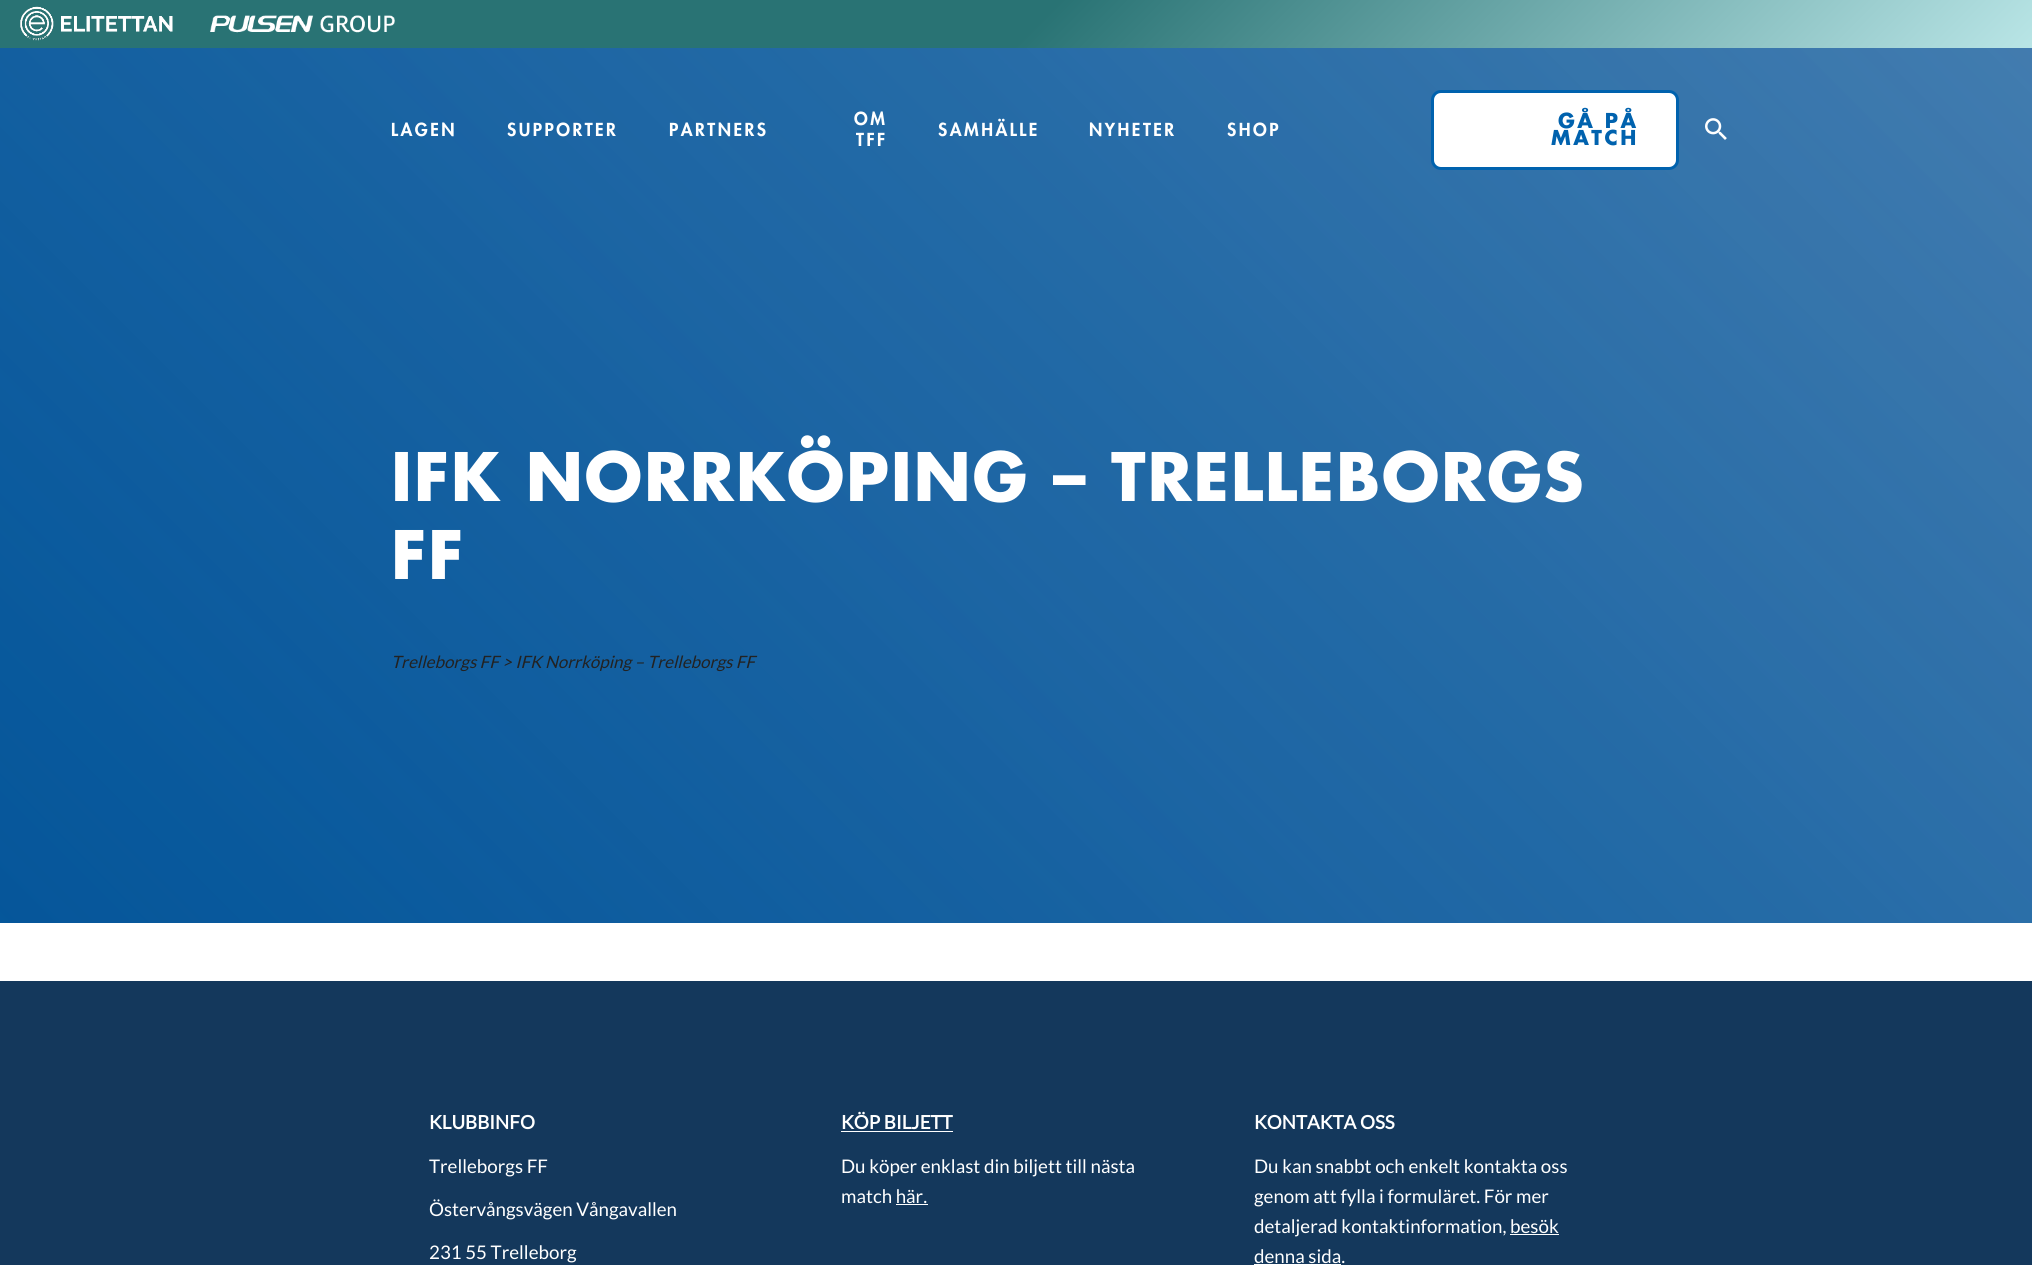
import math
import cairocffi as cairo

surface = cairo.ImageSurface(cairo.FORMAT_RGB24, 2032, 1265)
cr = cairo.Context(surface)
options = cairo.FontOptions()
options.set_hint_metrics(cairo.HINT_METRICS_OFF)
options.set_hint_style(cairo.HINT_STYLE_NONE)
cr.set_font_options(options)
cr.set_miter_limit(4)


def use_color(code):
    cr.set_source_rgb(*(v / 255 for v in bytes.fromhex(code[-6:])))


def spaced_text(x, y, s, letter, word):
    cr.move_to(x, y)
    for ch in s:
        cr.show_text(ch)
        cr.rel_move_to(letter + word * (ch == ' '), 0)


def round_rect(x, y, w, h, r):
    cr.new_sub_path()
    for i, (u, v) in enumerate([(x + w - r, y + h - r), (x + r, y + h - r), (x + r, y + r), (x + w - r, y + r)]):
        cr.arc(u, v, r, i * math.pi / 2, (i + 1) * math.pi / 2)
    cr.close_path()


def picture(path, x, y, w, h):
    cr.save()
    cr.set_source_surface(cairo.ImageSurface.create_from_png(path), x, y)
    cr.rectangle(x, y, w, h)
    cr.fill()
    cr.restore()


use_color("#ffffff")
cr.paint()
gradient = cairo.LinearGradient(496, -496, 1536, 544)
gradient.add_color_stop_rgba(0, 0.161, 0.451, 0.455, 1)
gradient.add_color_stop_rgba(0.51, 0.161, 0.451, 0.455, 1)
gradient.add_color_stop_rgba(1, 0.725, 0.898, 0.902, 1)
cr.set_source(gradient)
cr.rectangle(0, 0, 2032, 48)
cr.fill()
picture("img1.png", 20, 6, 153, 35)
picture("img2.png", 210, 15, 185, 18)
gradient = cairo.LinearGradient(1743, -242, 289, 1212)
gradient.add_color_stop_rgba(0, 0.275, 0.502, 0.702, 1)
gradient.add_color_stop_rgba(1, 0.016, 0.38, 0.686, 1)
cr.set_source(gradient)
cr.rectangle(0, 48, 2032, 875)
cr.fill()
gradient = cairo.LinearGradient(1768, -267, 264, 1237)
gradient.add_color_stop_rgba(0, 0.027, 0.271, 0.475, 0.07)
gradient.add_color_stop_rgba(1, 0.027, 0.271, 0.475, 0.39)
cr.set_source(gradient)
cr.rectangle(0, 48, 2032, 875)
cr.fill()
cr.select_font_face("Futura Black")
cr.set_font_size(17.5)
use_color("#ffffff")
spaced_text(391, 136, "LAGEN", 2.5, 0)
spaced_text(507, 136, "SUPPORTER", 2.5, 0)
spaced_text(669, 136, "PARTNERS", 2.5, 0)
spaced_text(854, 125, "OM", 2.5, 0)
spaced_text(856, 146, "TFF", 2.5, 0)
spaced_text(938, 136, "SAMHÄLLE", 2.5, 0)
spaced_text(1089, 136, "NYHETER", 2.5, 0)
spaced_text(1227, 136, "SHOP", 2.5, 0)
round_rect(1432.5, 91.5, 245, 77, 8.5)
cr.fill_preserve()
use_color("#0062ae")
cr.set_line_width(3)
cr.stroke()
cr.select_font_face("Futura", cairo.FONT_SLANT_NORMAL, cairo.FONT_WEIGHT_BOLD)
cr.set_font_size(20)
spaced_text(1558, 128, "GÅ PÅ", 2.5, 0)
spaced_text(1551, 145, "MATCH", 2.5, 0)
picture("img3.png", 1705, 118, 22, 22)
cr.set_font_size(65)
use_color("#ffffff")
spaced_text(391, 501, "IFK NORRKÖPING – TRELLEBORGS", 1.7, 0)
spaced_text(391, 579, "FF", 1.7, 0)
cr.select_font_face("Lato", cairo.FONT_SLANT_ITALIC)
cr.set_font_size(17)
use_color("#222222")
cr.move_to(391, 668)
cr.show_text("Trelleborgs FF > IFK Norrköping – Trelleborgs FF")
use_color("#14385c")
cr.rectangle(0, 981, 2032, 284)
cr.fill()
cr.select_font_face("Lato", cairo.FONT_SLANT_NORMAL, cairo.FONT_WEIGHT_BOLD)
cr.set_font_size(18.75)
use_color("#ffffff")
cr.move_to(429, 1129)
cr.show_text("KLUBBINFO")
cr.select_font_face("Lato")
cr.move_to(429, 1173)
cr.show_text("Trelleborgs FF")
cr.move_to(429, 1216)
cr.show_text("Östervångsvägen Vångavallen")
cr.move_to(429, 1259)
cr.show_text("231 55 Trelleborg")
cr.select_font_face("Lato", cairo.FONT_SLANT_NORMAL, cairo.FONT_WEIGHT_BOLD)
cr.move_to(841, 1129)
cr.show_text("KÖP BILJETT")
cr.rectangle(841, 1131, 112, 1)
cr.fill()
cr.select_font_face("Lato")
cr.move_to(841, 1173)
cr.show_text("Du köper enklast din biljett till nästa")
cr.move_to(841, 1203)
cr.show_text("match här.")
cr.rectangle(896, 1204, 32, 1)
cr.fill()
cr.select_font_face("Lato", cairo.FONT_SLANT_NORMAL, cairo.FONT_WEIGHT_BOLD)
cr.move_to(1254, 1129)
cr.show_text("KONTAKTA OSS")
cr.select_font_face("Lato")
cr.move_to(1254, 1173)
cr.show_text("Du kan snabbt och enkelt kontakta oss")
cr.move_to(1254, 1203)
cr.show_text("genom att fylla i formuläret. För mer")
cr.move_to(1254, 1233)
cr.show_text("detaljerad kontaktinformation, besök")
cr.move_to(1254, 1263)
cr.show_text("denna sida.")
cr.rectangle(1510, 1234, 49, 1)
cr.fill()
cr.rectangle(1254, 1264, 87, 1)
cr.fill()
surface.write_to_png("result.png")
